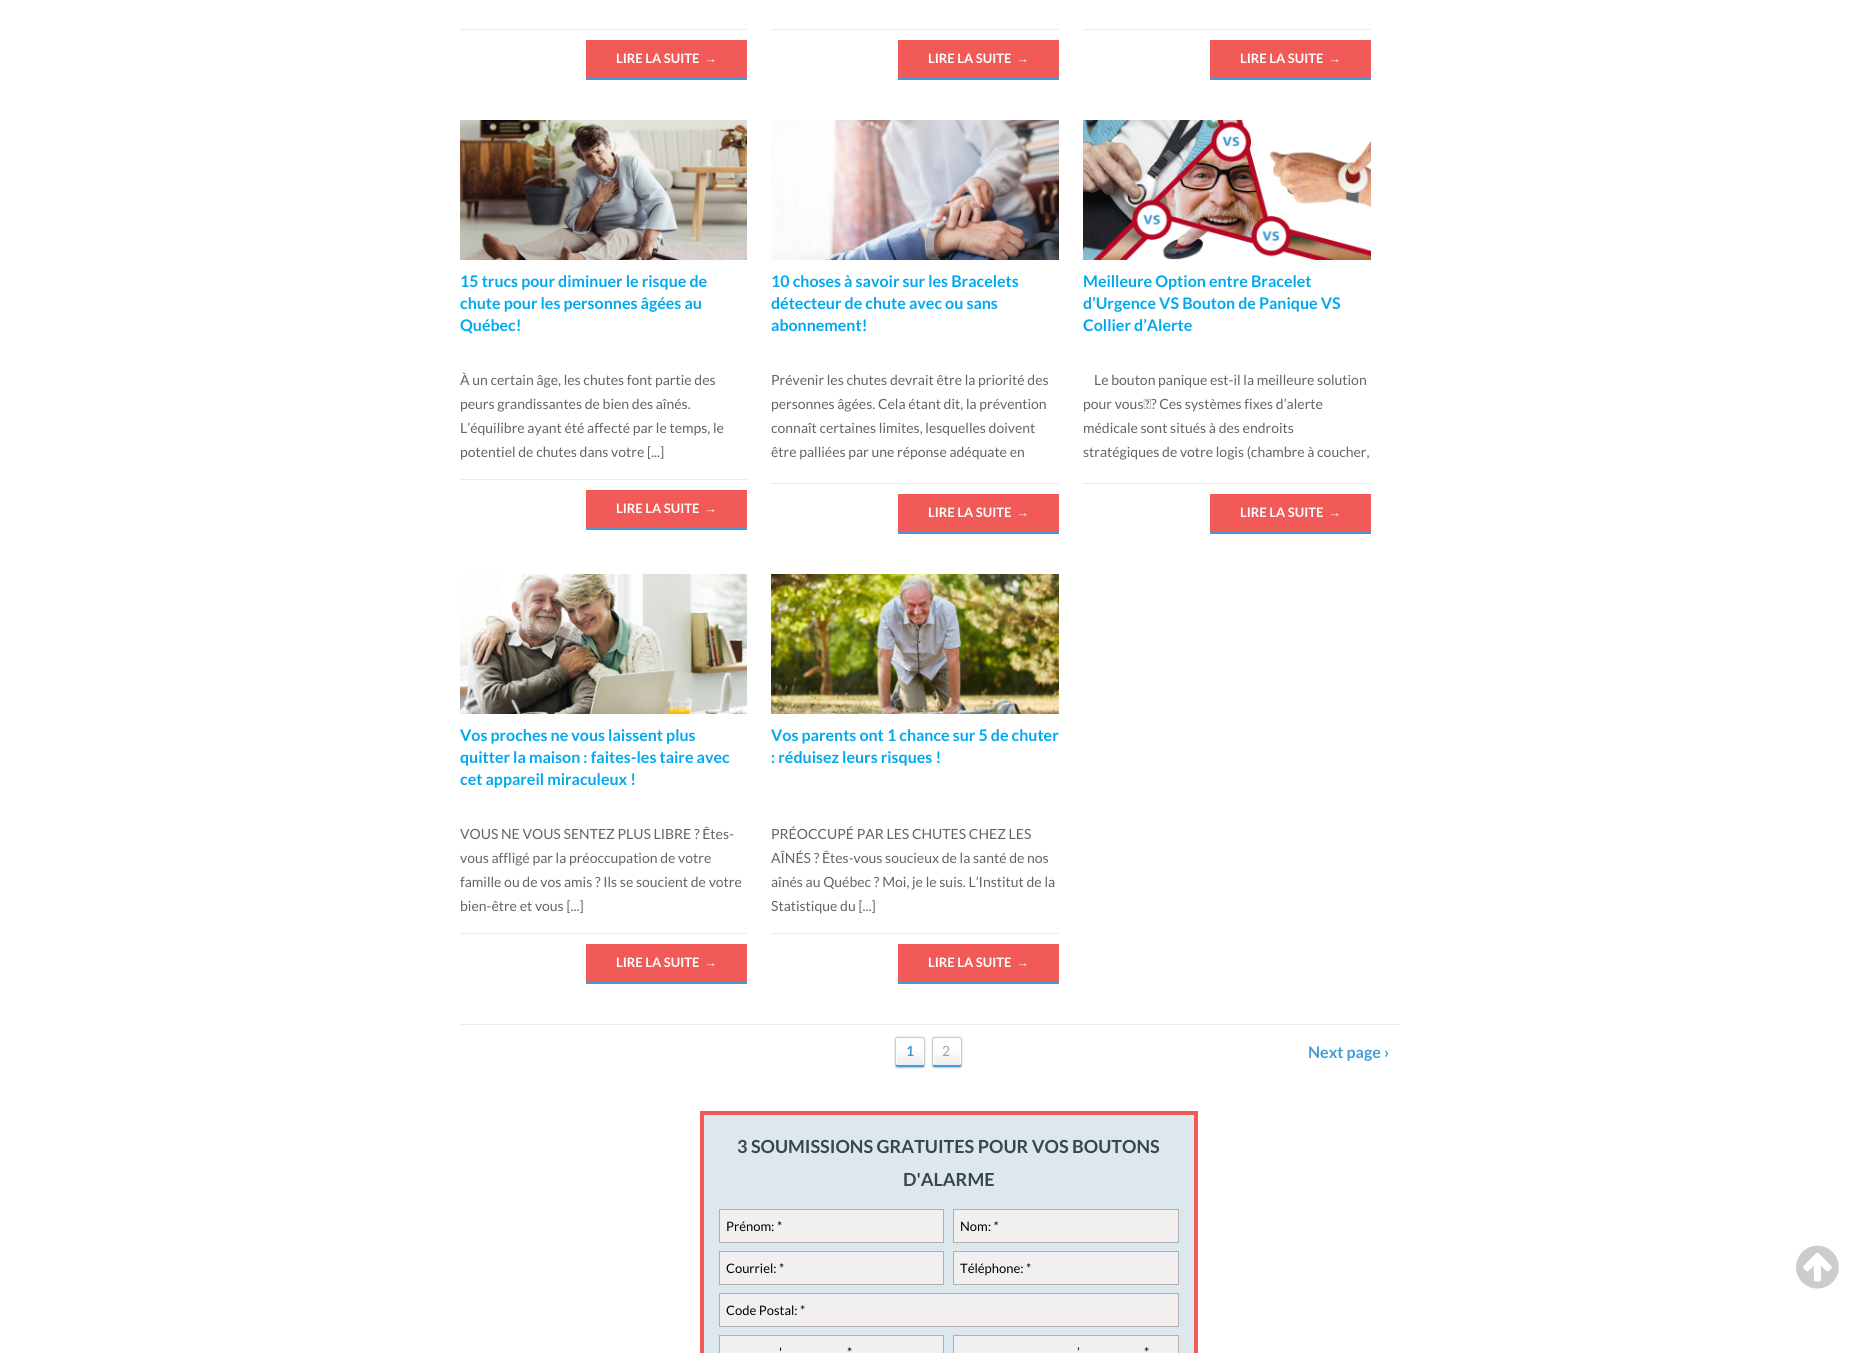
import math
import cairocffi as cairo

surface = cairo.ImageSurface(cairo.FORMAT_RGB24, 1859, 1353)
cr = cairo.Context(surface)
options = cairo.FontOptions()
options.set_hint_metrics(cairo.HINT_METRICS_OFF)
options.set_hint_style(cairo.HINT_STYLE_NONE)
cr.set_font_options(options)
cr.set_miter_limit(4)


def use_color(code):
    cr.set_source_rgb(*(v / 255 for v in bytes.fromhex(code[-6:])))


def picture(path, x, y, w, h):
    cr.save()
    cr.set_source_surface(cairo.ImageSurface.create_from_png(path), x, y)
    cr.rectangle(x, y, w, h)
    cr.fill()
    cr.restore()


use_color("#ffffff")
cr.paint()
use_color("#ebebeb")
cr.rectangle(460, 29, 287, 1)
cr.fill()
use_color("#f25a58")
cr.rectangle(586, 40, 161, 37)
cr.fill()
use_color("#449cd7")
cr.rectangle(586, 77, 161, 3)
cr.fill()
cr.select_font_face("Lato", cairo.FONT_SLANT_NORMAL, cairo.FONT_WEIGHT_BOLD)
cr.set_font_size(13)
use_color("#ffffff")
cr.move_to(616, 63)
cr.show_text("LIRE LA SUITE")
cr.select_font_face("Liberation Sans", cairo.FONT_SLANT_NORMAL, cairo.FONT_WEIGHT_BOLD)
cr.move_to(704, 63)
cr.show_text("→")
use_color("#ebebeb")
cr.rectangle(771, 29, 288, 1)
cr.fill()
use_color("#f25a58")
cr.rectangle(898, 40, 161, 37)
cr.fill()
use_color("#449cd7")
cr.rectangle(898, 77, 161, 3)
cr.fill()
cr.select_font_face("Lato", cairo.FONT_SLANT_NORMAL, cairo.FONT_WEIGHT_BOLD)
use_color("#ffffff")
cr.move_to(928, 63)
cr.show_text("LIRE LA SUITE")
cr.select_font_face("Liberation Sans", cairo.FONT_SLANT_NORMAL, cairo.FONT_WEIGHT_BOLD)
cr.move_to(1016, 63)
cr.show_text("→")
use_color("#ebebeb")
cr.rectangle(1083, 29, 288, 1)
cr.fill()
use_color("#f25a58")
cr.rectangle(1210, 40, 161, 37)
cr.fill()
use_color("#449cd7")
cr.rectangle(1210, 77, 161, 3)
cr.fill()
cr.select_font_face("Lato", cairo.FONT_SLANT_NORMAL, cairo.FONT_WEIGHT_BOLD)
use_color("#ffffff")
cr.move_to(1240, 63)
cr.show_text("LIRE LA SUITE")
cr.select_font_face("Liberation Sans", cairo.FONT_SLANT_NORMAL, cairo.FONT_WEIGHT_BOLD)
cr.move_to(1328, 63)
cr.show_text("→")
picture("img1.png", 460, 120, 287, 140)
cr.select_font_face("Lato", cairo.FONT_SLANT_NORMAL, cairo.FONT_WEIGHT_BOLD)
cr.set_font_size(16)
use_color("#00a9ee")
cr.move_to(460, 287)
cr.show_text("15 trucs pour diminuer le risque de")
cr.move_to(460, 309)
cr.show_text("chute pour les personnes âgées au")
cr.move_to(460, 331)
cr.show_text("Québec!")
cr.select_font_face("Lato")
cr.set_font_size(14)
use_color("#646464")
cr.move_to(460, 385)
cr.show_text("À un certain âge, les chutes font partie des")
cr.move_to(460, 409)
cr.show_text("peurs grandissantes de bien des aînés.")
cr.move_to(460, 433)
cr.show_text("L’équilibre ayant été affecté par le temps, le")
cr.move_to(460, 457)
cr.show_text("potentiel de chutes dans votre [...]")
use_color("#ebebeb")
cr.rectangle(460, 479, 287, 1)
cr.fill()
use_color("#f25a58")
cr.rectangle(586, 490, 161, 37)
cr.fill()
use_color("#449cd7")
cr.rectangle(586, 527, 161, 3)
cr.fill()
cr.select_font_face("Lato", cairo.FONT_SLANT_NORMAL, cairo.FONT_WEIGHT_BOLD)
cr.set_font_size(13)
use_color("#ffffff")
cr.move_to(616, 513)
cr.show_text("LIRE LA SUITE")
cr.select_font_face("Liberation Sans", cairo.FONT_SLANT_NORMAL, cairo.FONT_WEIGHT_BOLD)
cr.move_to(704, 513)
cr.show_text("→")
picture("img2.png", 771, 120, 288, 140)
cr.select_font_face("Lato", cairo.FONT_SLANT_NORMAL, cairo.FONT_WEIGHT_BOLD)
cr.set_font_size(16)
use_color("#00a9ee")
cr.move_to(771, 287)
cr.show_text("10 choses à savoir sur les Bracelets")
cr.move_to(771, 309)
cr.show_text("détecteur de chute avec ou sans")
cr.move_to(771, 331)
cr.show_text("abonnement!")
cr.select_font_face("Lato")
cr.set_font_size(14)
use_color("#646464")
cr.move_to(771, 385)
cr.show_text("Prévenir les chutes devrait être la priorité des")
cr.move_to(771, 409)
cr.show_text("personnes âgées. Cela étant dit, la prévention")
cr.move_to(771, 433)
cr.show_text("connaît certaines limites, lesquelles doivent")
cr.move_to(771, 457)
cr.show_text("être palliées par une réponse adéquate en")
use_color("#ebebeb")
cr.rectangle(771, 483, 288, 1)
cr.fill()
use_color("#f25a58")
cr.rectangle(898, 494, 161, 37)
cr.fill()
use_color("#449cd7")
cr.rectangle(898, 531, 161, 3)
cr.fill()
cr.select_font_face("Lato", cairo.FONT_SLANT_NORMAL, cairo.FONT_WEIGHT_BOLD)
cr.set_font_size(13)
use_color("#ffffff")
cr.move_to(928, 517)
cr.show_text("LIRE LA SUITE")
cr.select_font_face("Liberation Sans", cairo.FONT_SLANT_NORMAL, cairo.FONT_WEIGHT_BOLD)
cr.move_to(1016, 517)
cr.show_text("→")
picture("img3.png", 1083, 120, 288, 140)
cr.select_font_face("Lato", cairo.FONT_SLANT_NORMAL, cairo.FONT_WEIGHT_BOLD)
cr.set_font_size(16)
use_color("#00a9ee")
cr.move_to(1083, 287)
cr.show_text("Meilleure Option entre Bracelet")
cr.move_to(1083, 309)
cr.show_text("d’Urgence VS Bouton de Panique VS")
cr.move_to(1083, 331)
cr.show_text("Collier d’Alerte")
cr.select_font_face("Lato")
cr.set_font_size(14)
use_color("#646464")
cr.move_to(1094, 385)
cr.show_text("Le bouton panique est-il la meilleure solution")
cr.move_to(1083, 409)
cr.show_text("pour vous ? Ces systèmes fixes d’alerte")
cr.move_to(1083, 433)
cr.show_text("médicale sont situés à des endroits")
cr.move_to(1083, 457)
cr.show_text("stratégiques de votre logis (chambre à coucher,")
use_color("#ebebeb")
cr.rectangle(1083, 483, 288, 1)
cr.fill()
use_color("#f25a58")
cr.rectangle(1210, 494, 161, 37)
cr.fill()
use_color("#449cd7")
cr.rectangle(1210, 531, 161, 3)
cr.fill()
cr.select_font_face("Lato", cairo.FONT_SLANT_NORMAL, cairo.FONT_WEIGHT_BOLD)
cr.set_font_size(13)
use_color("#ffffff")
cr.move_to(1240, 517)
cr.show_text("LIRE LA SUITE")
cr.select_font_face("Liberation Sans", cairo.FONT_SLANT_NORMAL, cairo.FONT_WEIGHT_BOLD)
cr.move_to(1328, 517)
cr.show_text("→")
picture("img4.png", 460, 574, 287, 140)
cr.select_font_face("Lato", cairo.FONT_SLANT_NORMAL, cairo.FONT_WEIGHT_BOLD)
cr.set_font_size(16)
use_color("#00a9ee")
cr.move_to(460, 741)
cr.show_text("Vos proches ne vous laissent plus")
cr.move_to(460, 763)
cr.show_text("quitter la maison : faites-les taire avec")
cr.move_to(460, 785)
cr.show_text("cet appareil miraculeux !")
cr.select_font_face("Lato")
cr.set_font_size(14)
use_color("#646464")
cr.move_to(460, 839)
cr.show_text("VOUS NE VOUS SENTEZ PLUS LIBRE ? Êtes-")
cr.move_to(460, 863)
cr.show_text("vous affligé par la préoccupation de votre")
cr.move_to(460, 887)
cr.show_text("famille ou de vos amis ? Ils se soucient de votre")
cr.move_to(460, 911)
cr.show_text("bien-être et vous [...]")
use_color("#ebebeb")
cr.rectangle(460, 933, 287, 1)
cr.fill()
use_color("#f25a58")
cr.rectangle(586, 944, 161, 37)
cr.fill()
use_color("#449cd7")
cr.rectangle(586, 981, 161, 3)
cr.fill()
cr.select_font_face("Lato", cairo.FONT_SLANT_NORMAL, cairo.FONT_WEIGHT_BOLD)
cr.set_font_size(13)
use_color("#ffffff")
cr.move_to(616, 967)
cr.show_text("LIRE LA SUITE")
cr.select_font_face("Liberation Sans", cairo.FONT_SLANT_NORMAL, cairo.FONT_WEIGHT_BOLD)
cr.move_to(704, 967)
cr.show_text("→")
picture("img5.png", 771, 574, 288, 140)
cr.select_font_face("Lato", cairo.FONT_SLANT_NORMAL, cairo.FONT_WEIGHT_BOLD)
cr.set_font_size(16)
use_color("#00a9ee")
cr.move_to(771, 741)
cr.show_text("Vos parents ont 1 chance sur 5 de chuter")
cr.move_to(771, 763)
cr.show_text(": réduisez leurs risques !")
cr.select_font_face("Lato")
cr.set_font_size(14)
use_color("#646464")
cr.move_to(771, 839)
cr.show_text("PRÉOCCUPÉ PAR LES CHUTES CHEZ LES")
cr.move_to(771, 863)
cr.show_text("AÎNÉS ? Êtes-vous soucieux de la santé de nos")
cr.move_to(771, 887)
cr.show_text("aînés au Québec ? Moi, je le suis. L’Institut de la")
cr.move_to(771, 911)
cr.show_text("Statistique du [...]")
use_color("#ebebeb")
cr.rectangle(771, 933, 288, 1)
cr.fill()
use_color("#f25a58")
cr.rectangle(898, 944, 161, 37)
cr.fill()
use_color("#449cd7")
cr.rectangle(898, 981, 161, 3)
cr.fill()
cr.select_font_face("Lato", cairo.FONT_SLANT_NORMAL, cairo.FONT_WEIGHT_BOLD)
cr.set_font_size(13)
use_color("#ffffff")
cr.move_to(928, 967)
cr.show_text("LIRE LA SUITE")
cr.select_font_face("Liberation Sans", cairo.FONT_SLANT_NORMAL, cairo.FONT_WEIGHT_BOLD)
cr.move_to(1016, 967)
cr.show_text("→")
use_color("#ebebeb")
cr.rectangle(460, 1024, 940, 1)
cr.fill()
picture("img6.png", 894, 1036, 32, 33)
cr.select_font_face("Lato", cairo.FONT_SLANT_NORMAL, cairo.FONT_WEIGHT_BOLD)
cr.set_font_size(14)
use_color("#449cd7")
cr.move_to(906, 1056)
cr.show_text("1")
picture("img6.png", 931, 1036, 32, 33)
cr.select_font_face("Lato")
use_color("#a3a3a3")
cr.move_to(942, 1056)
cr.show_text("2")
cr.select_font_face("Lato", cairo.FONT_SLANT_NORMAL, cairo.FONT_WEIGHT_BOLD)
cr.set_font_size(16)
use_color("#449cd7")
cr.move_to(1308, 1058)
cr.show_text("Next page ›")
use_color("#dde8ee")
cr.rectangle(702, 1113, 494, 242)
cr.fill_preserve()
use_color("#f25a58")
cr.set_line_width(4)
cr.stroke()
cr.set_font_size(18)
use_color("#39464e")
cr.move_to(737, 1153)
cr.show_text("3 SOUMISSIONS GRATUITES POUR VOS BOUTONS")
cr.move_to(903, 1186)
cr.show_text("D'ALARME")
use_color("#f1eff0")
cr.rectangle(719.5, 1209.5, 224, 33)
cr.fill_preserve()
use_color("#b4aeae")
cr.set_line_width(1)
cr.stroke()
cr.select_font_face("Lato")
cr.set_font_size(13)
use_color("#000000")
cr.move_to(726, 1231)
cr.show_text("Prénom: *")
use_color("#f1eff0")
cr.rectangle(953.5, 1209.5, 225, 33)
cr.fill_preserve()
use_color("#b4aeae")
cr.stroke()
use_color("#000000")
cr.move_to(960, 1231)
cr.show_text("Nom: *")
use_color("#f1eff0")
cr.rectangle(719.5, 1251.5, 224, 33)
cr.fill_preserve()
use_color("#b4aeae")
cr.stroke()
use_color("#000000")
cr.move_to(726, 1273)
cr.show_text("Courriel: *")
use_color("#f1eff0")
cr.rectangle(953.5, 1251.5, 225, 33)
cr.fill_preserve()
use_color("#b4aeae")
cr.stroke()
use_color("#000000")
cr.move_to(960, 1273)
cr.show_text("Téléphone: *")
use_color("#f1eff0")
cr.rectangle(719.5, 1293.5, 459, 33)
cr.fill_preserve()
use_color("#b4aeae")
cr.stroke()
use_color("#000000")
cr.move_to(726, 1315)
cr.show_text("Code Postal: *")
use_color("#f1eff0")
cr.rectangle(719.5, 1335.5, 224, 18)
cr.fill_preserve()
use_color("#b4aeae")
cr.stroke()
use_color("#000000")
cr.move_to(779, 1357)
cr.show_text("'")
cr.move_to(847, 1357)
cr.show_text("*")
use_color("#f1eff0")
cr.rectangle(953.5, 1335.5, 225, 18)
cr.fill_preserve()
use_color("#b4aeae")
cr.stroke()
use_color("#000000")
cr.move_to(1077, 1357)
cr.show_text("’")
cr.move_to(1144, 1357)
cr.show_text("*")
picture("img7.png", 1796, 1245, 43, 44)
surface.write_to_png("result.png")
